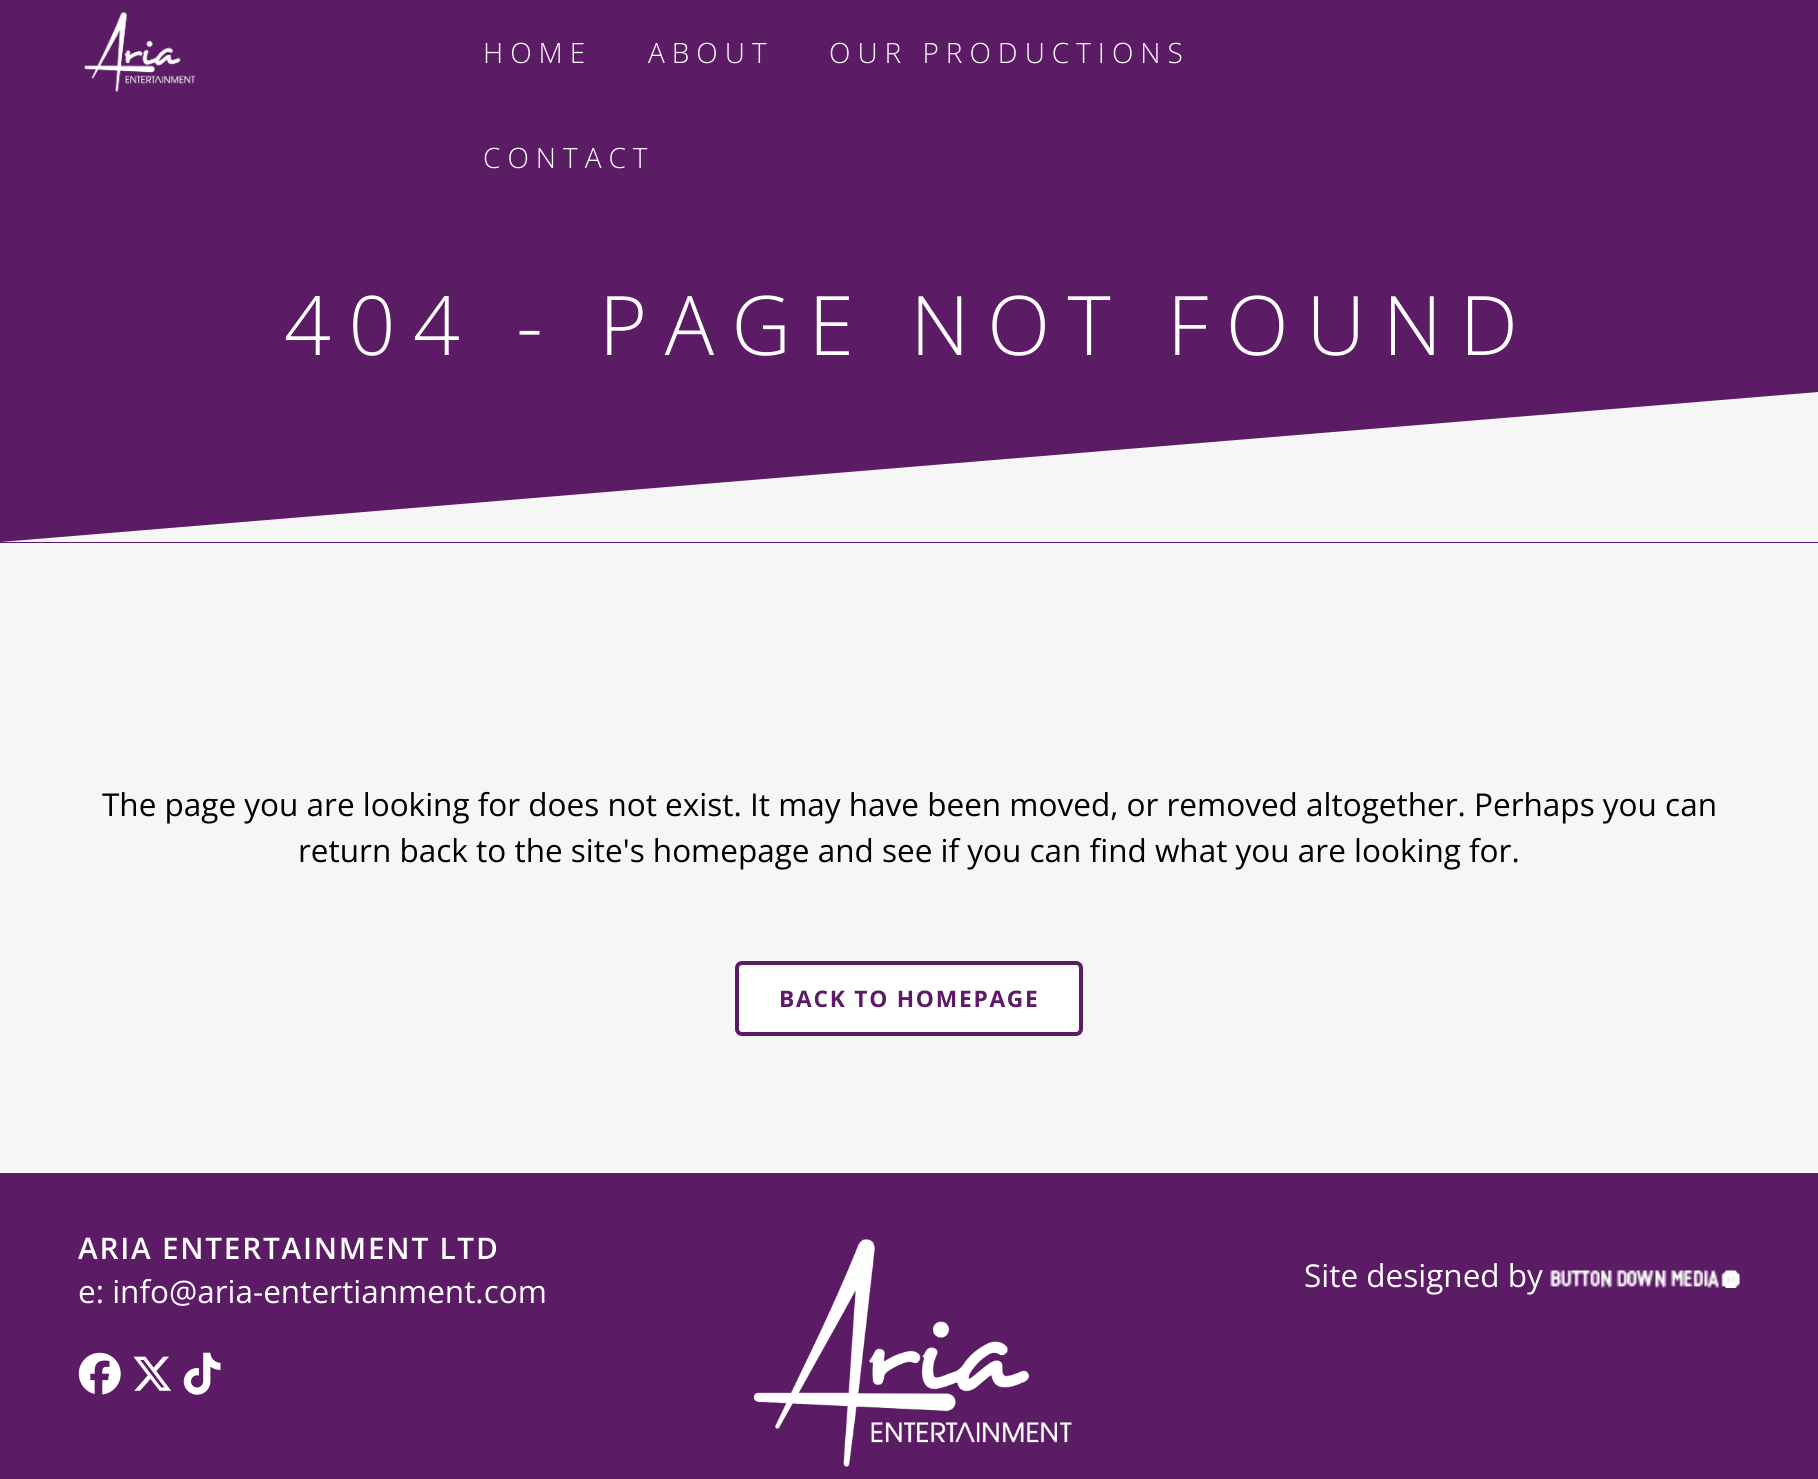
import math
import cairocffi as cairo

surface = cairo.ImageSurface(cairo.FORMAT_RGB24, 1818, 1479)
cr = cairo.Context(surface)
options = cairo.FontOptions()
options.set_hint_metrics(cairo.HINT_METRICS_OFF)
options.set_hint_style(cairo.HINT_STYLE_NONE)
cr.set_font_options(options)
cr.set_miter_limit(4)


def use_color(code):
    cr.set_source_rgb(*(v / 255 for v in bytes.fromhex(code[-6:])))


def spaced_text(x, y, s, letter, word):
    cr.move_to(x, y)
    for ch in s:
        cr.show_text(ch)
        cr.rel_move_to(letter + word * (ch == ' '), 0)


def round_rect(x, y, w, h, r):
    cr.new_sub_path()
    for i, (u, v) in enumerate([(x + w - r, y + h - r), (x + r, y + h - r), (x + r, y + r), (x + w - r, y + r)]):
        cr.arc(u, v, r, i * math.pi / 2, (i + 1) * math.pi / 2)
    cr.close_path()


def picture(path, x, y, w, h):
    cr.save()
    cr.set_source_surface(cairo.ImageSurface.create_from_png(path), x, y)
    cr.rectangle(x, y, w, h)
    cr.fill()
    cr.restore()


use_color("#f6f6f6")
cr.paint()
use_color("#5b1b65")
cr.rectangle(0, 0, 1818, 543)
cr.fill()
picture("img1.png", 84, 12, 112, 80)
cr.select_font_face("Open Sans Light")
cr.set_font_size(28)
use_color("#ffffff")
spaced_text(483, 63, "HOME", 7, 0)
spaced_text(648, 63, "ABOUT", 7, 0)
spaced_text(829, 63, "OUR PRODUCTIONS", 7, 0)
spaced_text(483, 168, "CONTACT", 7, 0)
cr.set_font_size(82.25)
spaced_text(284, 355, "404 - PAGE NOT FOUND", 17.5, 0)
use_color("#f6f6f6")
cr.new_path()
cr.move_to(0, 542)
cr.line_to(1818, 392)
cr.line_to(1818, 542)
cr.close_path()
cr.fill()
cr.select_font_face("Open Sans")
cr.set_font_size(31.5)
use_color("#000000")
cr.move_to(102, 816)
cr.show_text("The page you are looking for does not exist. It may have been moved, or removed altogether. Perhaps you can")
cr.move_to(298, 862)
cr.show_text("return back to the site's homepage and see if you can find what you are looking for.")
use_color("#ffffff")
round_rect(737, 963, 344, 71, 5)
cr.fill_preserve()
use_color("#5b1b65")
cr.set_line_width(4)
cr.stroke()
cr.select_font_face("Open Sans", cairo.FONT_SLANT_NORMAL, cairo.FONT_WEIGHT_BOLD)
cr.set_font_size(22.75)
spaced_text(779, 1007, "BACK TO HOMEPAGE", 1.75, 0)
cr.rectangle(0, 1173, 1818, 306)
cr.fill()
cr.select_font_face("Open Sans SemiBold")
cr.set_font_size(29.75)
use_color("#ffffff")
spaced_text(78, 1259, "ARIA ENTERTAINMENT LTD", 1.75, 0)
cr.select_font_face("Open Sans")
cr.set_font_size(31.5)
cr.move_to(78, 1303)
cr.show_text("e: info@aria-entertianment.com")
picture("img2.png", 78, 1352, 43, 43)
picture("img3.png", 133, 1356, 39, 35)
picture("img4.png", 183, 1352, 38, 43)
picture("img5.png", 753, 1239, 319, 228)
cr.move_to(1304, 1287)
cr.show_text("Site designed by")
picture("img6.png", 1550, 1270, 190, 18)
surface.write_to_png("result.png")
